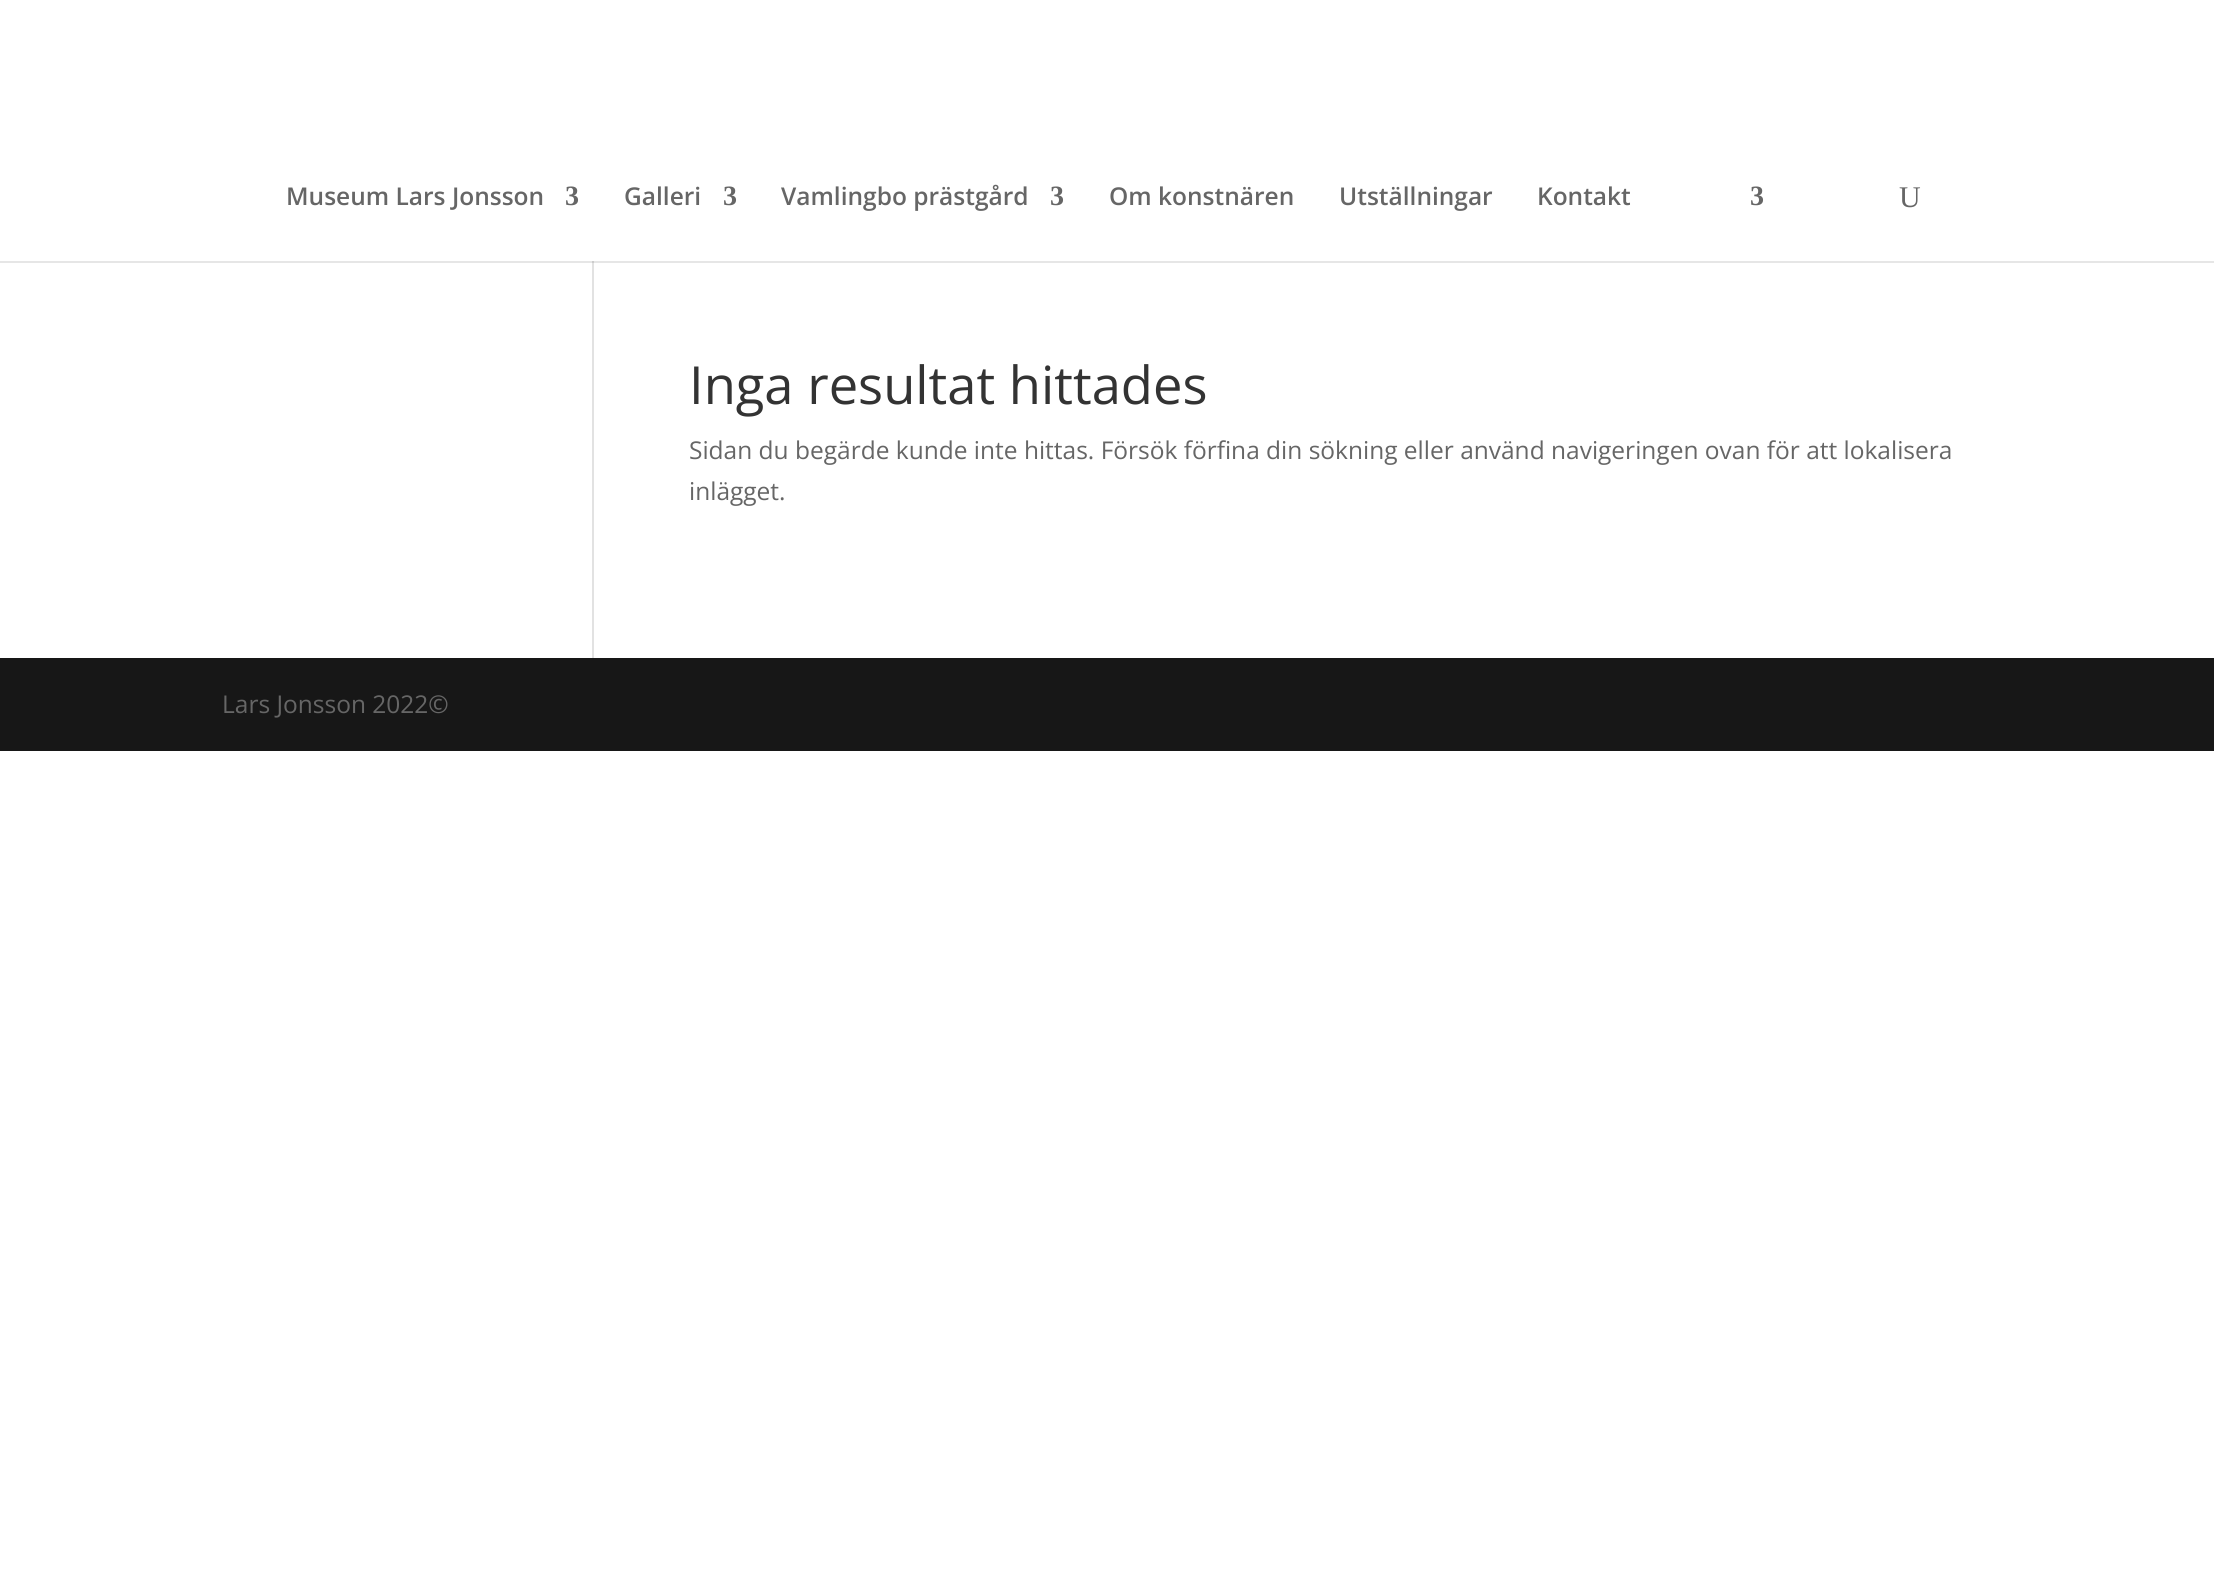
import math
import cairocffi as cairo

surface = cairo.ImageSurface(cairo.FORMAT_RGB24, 2214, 1576)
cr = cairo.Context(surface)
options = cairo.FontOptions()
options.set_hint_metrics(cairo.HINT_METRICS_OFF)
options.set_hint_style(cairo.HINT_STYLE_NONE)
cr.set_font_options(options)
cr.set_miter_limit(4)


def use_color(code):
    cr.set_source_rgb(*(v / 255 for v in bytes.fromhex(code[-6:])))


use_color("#ffffff")
cr.paint()
use_color("#e2e2e2")
cr.rectangle(592, 257, 2, 401)
cr.fill()
cr.set_source_rgba(0, 0, 0, 0.1)
cr.new_path()
cr.move_to(0, 261)
cr.line_to(0, 263)
cr.line_to(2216, 263)
cr.line_to(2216, 2)
cr.line_to(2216, 261)
cr.close_path()
cr.fill()
use_color("#ffffff")
cr.rectangle(592, 257, 2, 4)
cr.fill()
cr.select_font_face("Open Sans SemiBold")
cr.set_font_size(24.5)
use_color("#666666")
cr.move_to(286, 205)
cr.show_text("Museum Lars Jonsson")
cr.select_font_face("Liberation Serif", cairo.FONT_SLANT_NORMAL, cairo.FONT_WEIGHT_BOLD)
cr.set_font_size(28)
cr.move_to(565, 205)
cr.show_text("3")
cr.select_font_face("Open Sans SemiBold")
cr.set_font_size(24.5)
cr.move_to(624, 205)
cr.show_text("Galleri")
cr.select_font_face("Liberation Serif", cairo.FONT_SLANT_NORMAL, cairo.FONT_WEIGHT_BOLD)
cr.set_font_size(28)
cr.move_to(723, 205)
cr.show_text("3")
cr.select_font_face("Open Sans SemiBold")
cr.set_font_size(24.5)
cr.move_to(781, 205)
cr.show_text("Vamlingbo prästgård")
cr.select_font_face("Liberation Serif", cairo.FONT_SLANT_NORMAL, cairo.FONT_WEIGHT_BOLD)
cr.set_font_size(28)
cr.move_to(1050, 205)
cr.show_text("3")
cr.select_font_face("Open Sans SemiBold")
cr.set_font_size(24.5)
cr.move_to(1109, 205)
cr.show_text("Om konstnären")
cr.move_to(1339, 205)
cr.show_text("Utställningar")
cr.move_to(1537, 205)
cr.show_text("Kontakt")
cr.select_font_face("Liberation Serif", cairo.FONT_SLANT_NORMAL, cairo.FONT_WEIGHT_BOLD)
cr.set_font_size(28)
cr.move_to(1750, 205)
cr.show_text("3")
cr.select_font_face("Liberation Serif")
cr.set_font_size(30)
cr.move_to(1899, 207)
cr.show_text("U")
cr.select_font_face("Open Sans")
cr.set_font_size(52.5)
use_color("#333333")
cr.move_to(689, 404)
cr.show_text("Inga resultat hittades")
cr.set_font_size(24.5)
use_color("#666666")
cr.move_to(689, 459)
cr.show_text("Sidan du begärde kunde inte hittas. Försök förfina din sökning eller använd navigeringen ovan för att lokalisera")
cr.move_to(689, 500)
cr.show_text("inlägget.")
use_color("#171717")
cr.rectangle(0, 658, 2214, 93)
cr.fill()
use_color("#666666")
cr.move_to(222, 713)
cr.show_text("Lars Jonsson 2022©")
surface.write_to_png("result.png")
